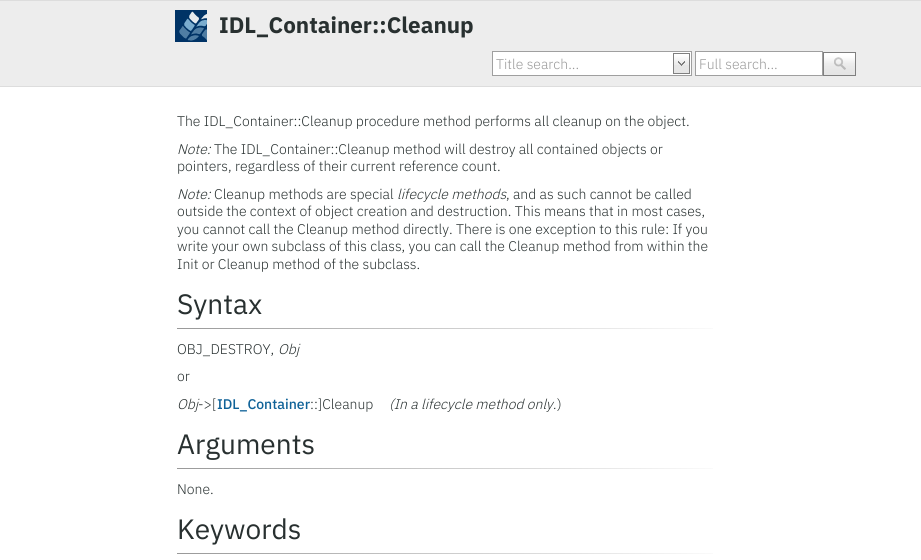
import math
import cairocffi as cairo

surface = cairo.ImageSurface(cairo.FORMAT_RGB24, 921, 560)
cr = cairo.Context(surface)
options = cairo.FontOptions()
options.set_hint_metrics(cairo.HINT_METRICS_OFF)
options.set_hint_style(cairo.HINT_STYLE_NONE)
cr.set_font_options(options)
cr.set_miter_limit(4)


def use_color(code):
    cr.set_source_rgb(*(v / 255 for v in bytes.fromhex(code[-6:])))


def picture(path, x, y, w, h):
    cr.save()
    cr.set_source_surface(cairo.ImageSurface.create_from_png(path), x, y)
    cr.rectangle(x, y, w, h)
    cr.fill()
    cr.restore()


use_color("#ffffff")
cr.paint()
use_color("#dddddd")
cr.rectangle(0, 0, 921, 1)
cr.fill()
use_color("#ededed")
cr.rectangle(0, 1, 921, 85)
cr.fill()
use_color("#dddddd")
cr.rectangle(0, 86, 921, 1)
cr.fill()
picture("img1.png", 175, 10, 32, 32)
cr.select_font_face("IBM Plex Sans", cairo.FONT_SLANT_NORMAL, cairo.FONT_WEIGHT_BOLD)
cr.set_font_size(22.4)
use_color("#283030")
cr.move_to(219, 33)
cr.show_text("IDL_Container::Cleanup")
use_color("#ffffff")
cr.rectangle(492.5, 51.5, 199, 24)
cr.fill_preserve()
use_color("#9f9f9f")
cr.set_line_width(1)
cr.stroke()
cr.select_font_face("IBM Plex Sans Light")
cr.set_font_size(14)
use_color("#999999")
cr.move_to(496, 69)
cr.show_text("Title search...")
use_color("#e6e6e6")
cr.rectangle(674, 65, 15, 8)
cr.fill()
picture("img2.png", 674, 54, 15, 11)
cr.rectangle(673.5, 53.5, 16, 20)
use_color("#7f7f7f")
cr.stroke()
picture("img3.png", 678, 61, 7, 5)
use_color("#ffffff")
cr.rectangle(695.5, 51.5, 127, 24)
cr.fill_preserve()
use_color("#9f9f9f")
cr.stroke()
use_color("#999999")
cr.move_to(699, 69)
cr.show_text("Full search...")
picture("img4.png", 824, 53, 31, 22)
cr.rectangle(823.5, 52.5, 32, 23)
use_color("#7f7f7f")
cr.stroke()
picture("img5.png", 834, 57, 12, 13)
use_color("#283030")
cr.move_to(177, 126)
cr.show_text("The IDL_Container::Cleanup procedure method performs all cleanup on the object.")
cr.select_font_face("IBM Plex Sans Light", cairo.FONT_SLANT_ITALIC)
cr.move_to(177, 154)
cr.show_text("Note:")
cr.select_font_face("IBM Plex Sans Light")
cr.move_to(214, 154)
cr.show_text("The IDL_Container::Cleanup method will destroy all contained objects or")
cr.move_to(177, 171)
cr.show_text("pointers, regardless of their current reference count.")
cr.select_font_face("IBM Plex Sans Light", cairo.FONT_SLANT_ITALIC)
cr.move_to(177, 199)
cr.show_text("Note:")
cr.select_font_face("IBM Plex Sans Light")
cr.move_to(214, 199)
cr.show_text("Cleanup methods are special")
cr.select_font_face("IBM Plex Sans Light", cairo.FONT_SLANT_ITALIC)
cr.move_to(397, 199)
cr.show_text("lifecycle methods")
cr.select_font_face("IBM Plex Sans Light")
cr.move_to(506, 199)
cr.show_text(", and as such cannot be called")
cr.move_to(177, 216)
cr.show_text("outside the context of object creation and destruction. This means that in most cases,")
cr.move_to(177, 234)
cr.show_text("you cannot call the Cleanup method directly. There is one exception to this rule: If you")
cr.move_to(177, 251)
cr.show_text("write your own subclass of this class, you can call the Cleanup method from within the")
cr.move_to(177, 269)
cr.show_text("Init or Cleanup method of the subclass.")
cr.select_font_face("IBM Plex Sans")
cr.set_font_size(28)
cr.move_to(177, 314)
cr.show_text("Syntax")
gradient = cairo.LinearGradient(177, 329, 713, 329)
gradient.add_color_stop_rgba(0, 0.6, 0.6, 0.6, 1)
gradient.add_color_stop_rgba(0.5, 0.8, 0.8, 0.8, 1)
gradient.add_color_stop_rgba(1, 0.98, 0.98, 0.98, 1)
cr.set_source(gradient)
cr.rectangle(177, 328, 536, 1)
cr.fill()
cr.select_font_face("IBM Plex Sans Light")
cr.set_font_size(14)
use_color("#283030")
cr.move_to(177, 354)
cr.show_text("OBJ_DESTROY,")
cr.select_font_face("IBM Plex Sans Light", cairo.FONT_SLANT_ITALIC)
cr.move_to(278, 354)
cr.show_text("Obj")
cr.select_font_face("IBM Plex Sans Light")
cr.move_to(177, 381)
cr.show_text("or")
cr.select_font_face("IBM Plex Sans Light", cairo.FONT_SLANT_ITALIC)
cr.move_to(177, 409)
cr.show_text("Obj")
cr.select_font_face("IBM Plex Sans Light")
cr.move_to(198, 409)
cr.show_text("->[")
cr.select_font_face("IBM Plex Sans Medium")
use_color("#0f6298")
cr.move_to(217, 409)
cr.show_text("IDL_Container")
cr.select_font_face("IBM Plex Sans Light")
use_color("#283030")
cr.move_to(310, 409)
cr.show_text("::]Cleanup")
cr.select_font_face("IBM Plex Sans Light", cairo.FONT_SLANT_ITALIC)
cr.move_to(389, 409)
cr.show_text("(In a lifecycle method only.")
cr.select_font_face("IBM Plex Sans Light")
cr.move_to(557, 409)
cr.show_text(")")
cr.select_font_face("IBM Plex Sans")
cr.set_font_size(28)
cr.move_to(177, 454)
cr.show_text("Arguments")
gradient = cairo.LinearGradient(177, 469, 713, 469)
gradient.add_color_stop_rgba(0, 0.6, 0.6, 0.6, 1)
gradient.add_color_stop_rgba(0.5, 0.8, 0.8, 0.8, 1)
gradient.add_color_stop_rgba(1, 0.98, 0.98, 0.98, 1)
cr.set_source(gradient)
cr.rectangle(177, 468, 536, 1)
cr.fill()
cr.select_font_face("IBM Plex Sans Light")
cr.set_font_size(14)
use_color("#283030")
cr.move_to(177, 494)
cr.show_text("None.")
cr.select_font_face("IBM Plex Sans")
cr.set_font_size(28)
cr.move_to(177, 539)
cr.show_text("Keywords")
gradient = cairo.LinearGradient(177, 554, 713, 554)
gradient.add_color_stop_rgba(0, 0.6, 0.6, 0.6, 1)
gradient.add_color_stop_rgba(0.5, 0.8, 0.8, 0.8, 1)
gradient.add_color_stop_rgba(1, 0.98, 0.98, 0.98, 1)
cr.set_source(gradient)
cr.rectangle(177, 553, 536, 1)
cr.fill()
surface.write_to_png("result.png")
